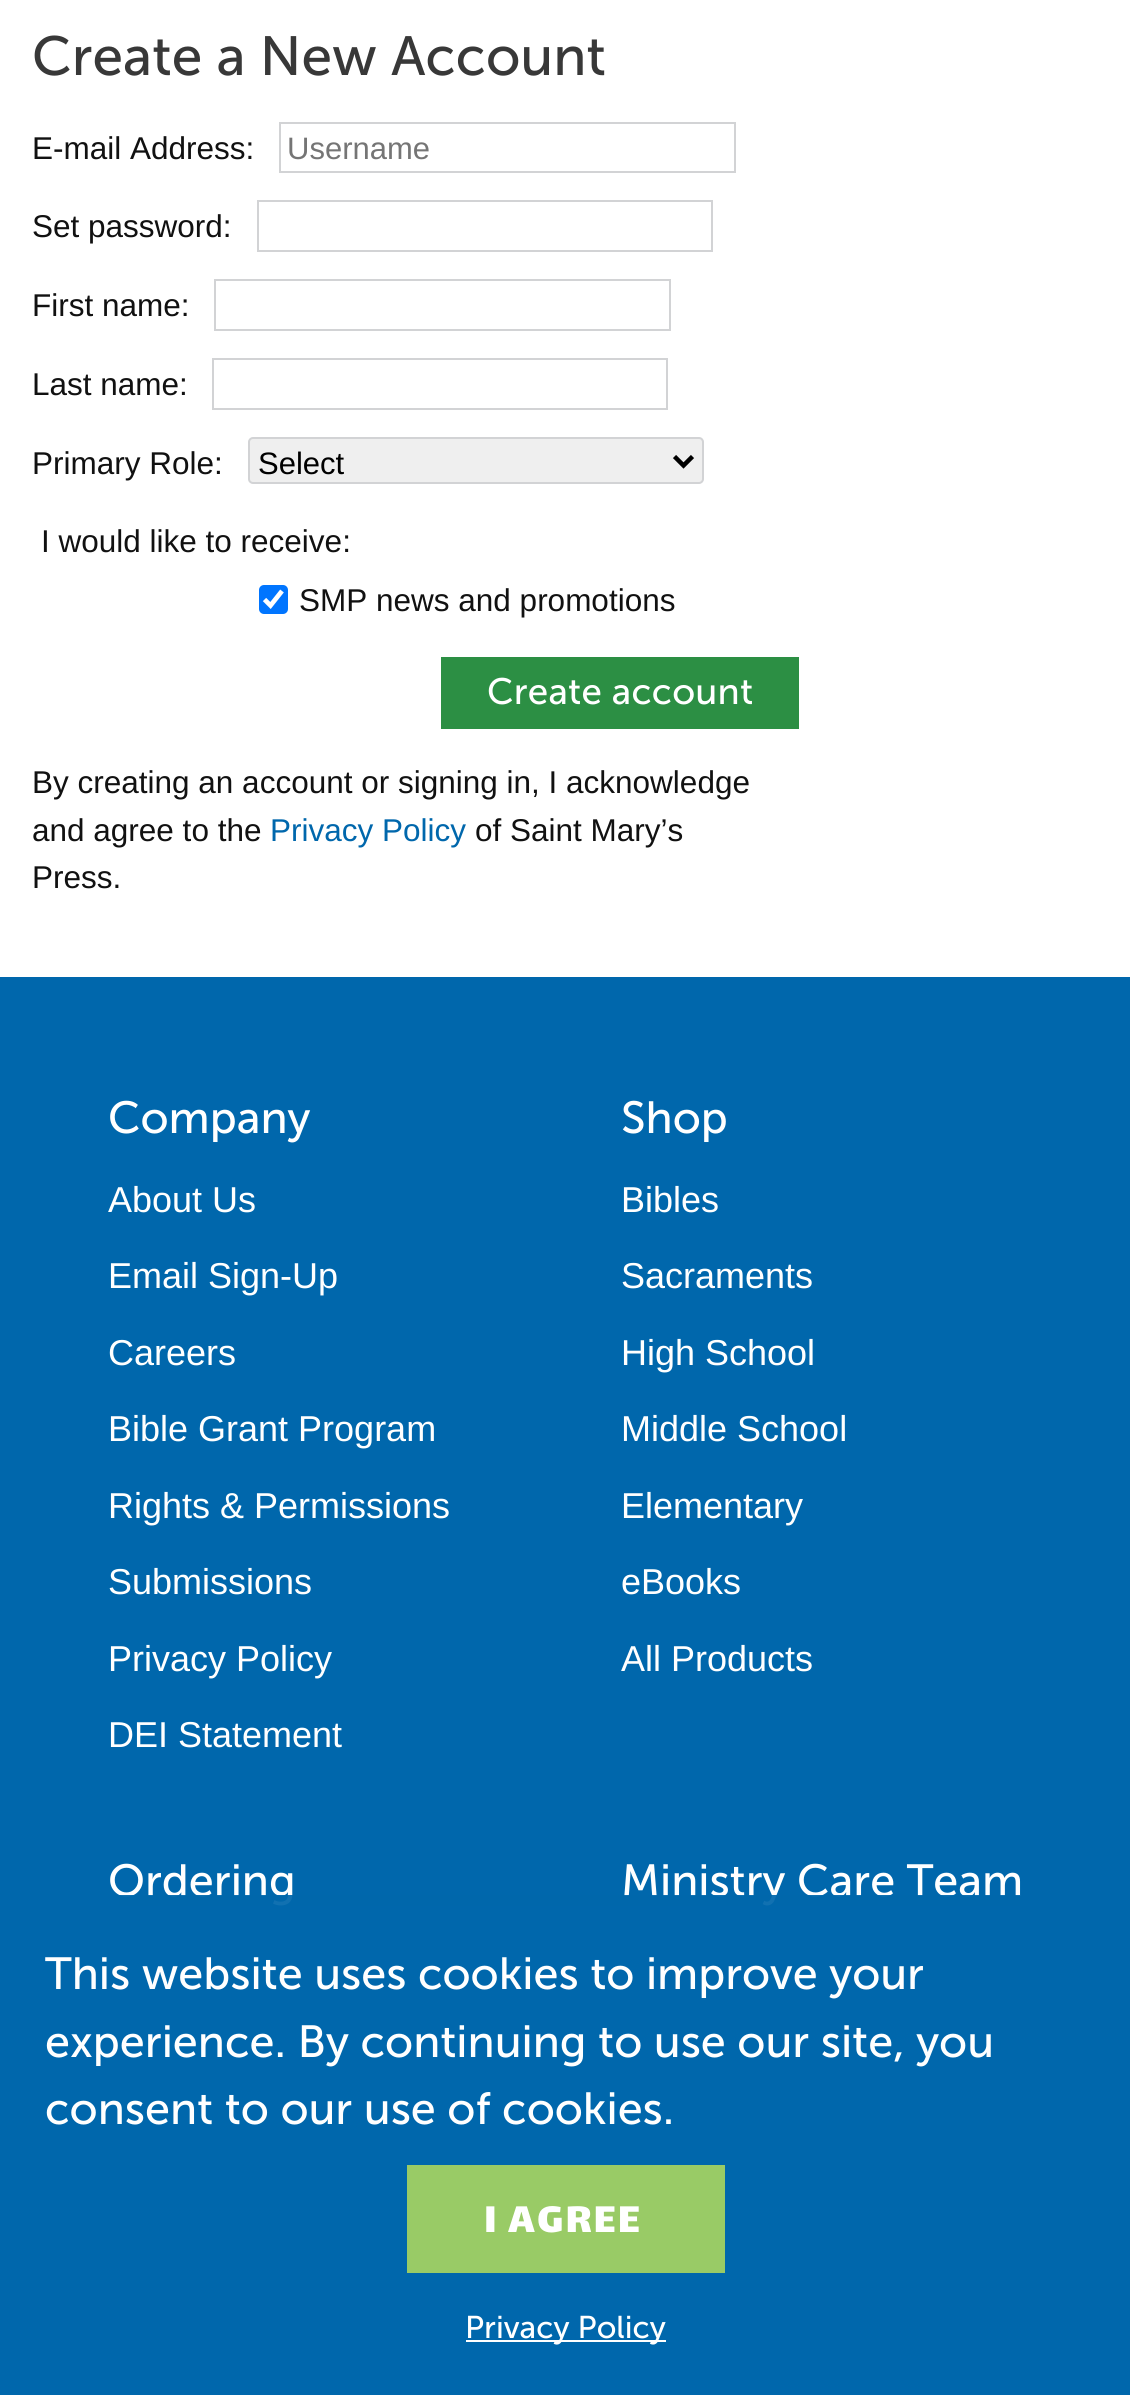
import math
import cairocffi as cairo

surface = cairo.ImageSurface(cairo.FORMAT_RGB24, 1130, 2395)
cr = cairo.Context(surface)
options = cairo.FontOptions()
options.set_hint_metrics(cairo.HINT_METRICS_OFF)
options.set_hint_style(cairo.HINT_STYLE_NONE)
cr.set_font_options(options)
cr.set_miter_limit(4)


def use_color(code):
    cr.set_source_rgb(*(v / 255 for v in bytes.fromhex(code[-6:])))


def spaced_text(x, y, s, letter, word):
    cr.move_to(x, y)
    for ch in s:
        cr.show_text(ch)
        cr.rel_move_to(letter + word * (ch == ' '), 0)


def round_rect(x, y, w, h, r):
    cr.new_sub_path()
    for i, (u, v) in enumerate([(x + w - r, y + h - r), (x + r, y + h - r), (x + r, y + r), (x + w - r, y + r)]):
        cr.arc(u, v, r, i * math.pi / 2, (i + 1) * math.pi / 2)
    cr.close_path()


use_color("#0067ac")
cr.paint()
use_color("#ffffff")
cr.rectangle(0, 0, 1130, 977)
cr.fill()
cr.select_font_face("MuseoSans")
cr.set_font_size(55.1)
use_color("#383838")
cr.move_to(32, 75)
cr.show_text("Create a New Account")
cr.select_font_face("Liberation Sans")
cr.set_font_size(31.5)
use_color("#111111")
cr.move_to(32, 159)
cr.show_text("E-mail Address:")
cr.rectangle(280, 123, 455, 49)
use_color("#d2d3d5")
cr.stroke()
cr.set_font_size(31)
use_color("#757575")
cr.move_to(287, 159)
cr.show_text("Username")
cr.set_font_size(31.5)
use_color("#111111")
cr.move_to(32, 237)
cr.show_text("Set password:")
cr.rectangle(258, 201, 454, 50)
use_color("#d2d3d5")
cr.stroke()
use_color("#111111")
cr.move_to(32, 316)
cr.show_text("First name:")
cr.rectangle(215, 280, 455, 50)
use_color("#d2d3d5")
cr.stroke()
use_color("#111111")
cr.move_to(32, 395)
cr.show_text("Last name:")
cr.rectangle(213, 359, 454, 50)
use_color("#d2d3d5")
cr.stroke()
use_color("#111111")
cr.move_to(32, 474)
cr.show_text("Primary Role:")
use_color("#efefef")
round_rect(249, 438, 454, 45, 4)
cr.fill_preserve()
use_color("#d2d3d5")
cr.stroke()
cr.new_path()
cr.move_to(674.5, 456.5)
cr.line_to(683.5, 465.5)
cr.line_to(692.5, 456.5)
use_color("#000000")
cr.set_line_width(4.5)
cr.stroke()
cr.set_font_size(31)
cr.move_to(258, 474)
cr.show_text("Select")
cr.set_font_size(31.5)
use_color("#111111")
cr.move_to(41, 552)
cr.show_text("I would like to receive:")
use_color("#0075ff")
round_rect(259, 585, 29, 29, 5)
cr.fill()
cr.new_path()
cr.move_to(264.5, 599.5)
cr.line_to(270.5, 605.5)
cr.line_to(282, 591)
use_color("#ffffff")
cr.set_line_width(4.7)
cr.stroke()
use_color("#111111")
cr.move_to(299, 611)
cr.show_text("SMP news and promotions")
use_color("#2c8f44")
cr.rectangle(441, 657, 358, 72)
cr.fill()
cr.select_font_face("MuseoSans")
cr.set_font_size(36.75)
use_color("#ffffff")
spaced_text(487, 704, "Create account", 0.25, 0)
cr.select_font_face("Liberation Sans")
cr.set_font_size(31.5)
use_color("#111111")
cr.move_to(32, 793)
cr.show_text("By creating an account or signing in, I acknowledge")
cr.move_to(32, 841)
cr.show_text("and agree to the")
use_color("#0067ac")
cr.move_to(270, 841)
cr.show_text("Privacy Policy")
use_color("#111111")
cr.move_to(475, 841)
cr.show_text("of Saint Mary’s")
cr.move_to(32, 888)
cr.show_text("Press.")
cr.select_font_face("MuseoSans")
cr.set_font_size(45)
use_color("#ffffff")
cr.move_to(108, 1133)
cr.show_text("Company")
cr.select_font_face("Liberation Sans")
cr.set_font_size(36)
cr.move_to(108, 1212)
cr.show_text("About Us")
cr.move_to(108, 1288)
cr.show_text("Email Sign-Up")
cr.move_to(108, 1365)
cr.show_text("Careers")
cr.move_to(108, 1441)
cr.show_text("Bible Grant Program")
cr.move_to(108, 1518)
cr.show_text("Rights & Permissions")
cr.move_to(108, 1594)
cr.show_text("Submissions")
cr.move_to(108, 1671)
cr.show_text("Privacy Policy")
cr.move_to(108, 1747)
cr.show_text("DEI Statement")
cr.select_font_face("MuseoSans")
cr.set_font_size(45)
cr.move_to(621, 1133)
cr.show_text("Shop")
cr.select_font_face("Liberation Sans")
cr.set_font_size(36)
cr.move_to(621, 1212)
cr.show_text("Bibles")
cr.move_to(621, 1288)
cr.show_text("Sacraments")
cr.move_to(621, 1365)
cr.show_text("High School")
cr.move_to(621, 1441)
cr.show_text("Middle School")
cr.move_to(621, 1518)
cr.show_text("Elementary")
cr.move_to(621, 1594)
cr.show_text("eBooks")
cr.move_to(621, 1671)
cr.show_text("All Products")
cr.select_font_face("MuseoSans")
cr.set_font_size(45)
cr.move_to(108, 1896)
cr.show_text("Ordering")
cr.move_to(621, 1896)
cr.show_text("Ministry Care Team")
cr.set_source_rgba(0, 0.404, 0.675, 0.93)
cr.rectangle(119, 1895, 901, 11)
cr.fill()
use_color("#ffffff")
cr.move_to(45, 1989)
cr.show_text("This website uses cookies to improve your")
cr.move_to(45, 2057)
cr.show_text("experience. By continuing to use our site, you")
cr.move_to(45, 2124)
cr.show_text("consent to our use of cookies.")
use_color("#99cb66")
cr.rectangle(407, 2165, 318, 108)
cr.fill()
cr.select_font_face("Lalezar")
use_color("#ffffff")
spaced_text(484, 2232, "I AGREE", 2.25, 0)
cr.rectangle(466, 2340, 200, 2)
cr.fill()
cr.select_font_face("MuseoSans")
cr.set_font_size(31.5)
cr.move_to(465, 2338)
cr.show_text("Privacy Policy")
surface.write_to_png("result.png")
